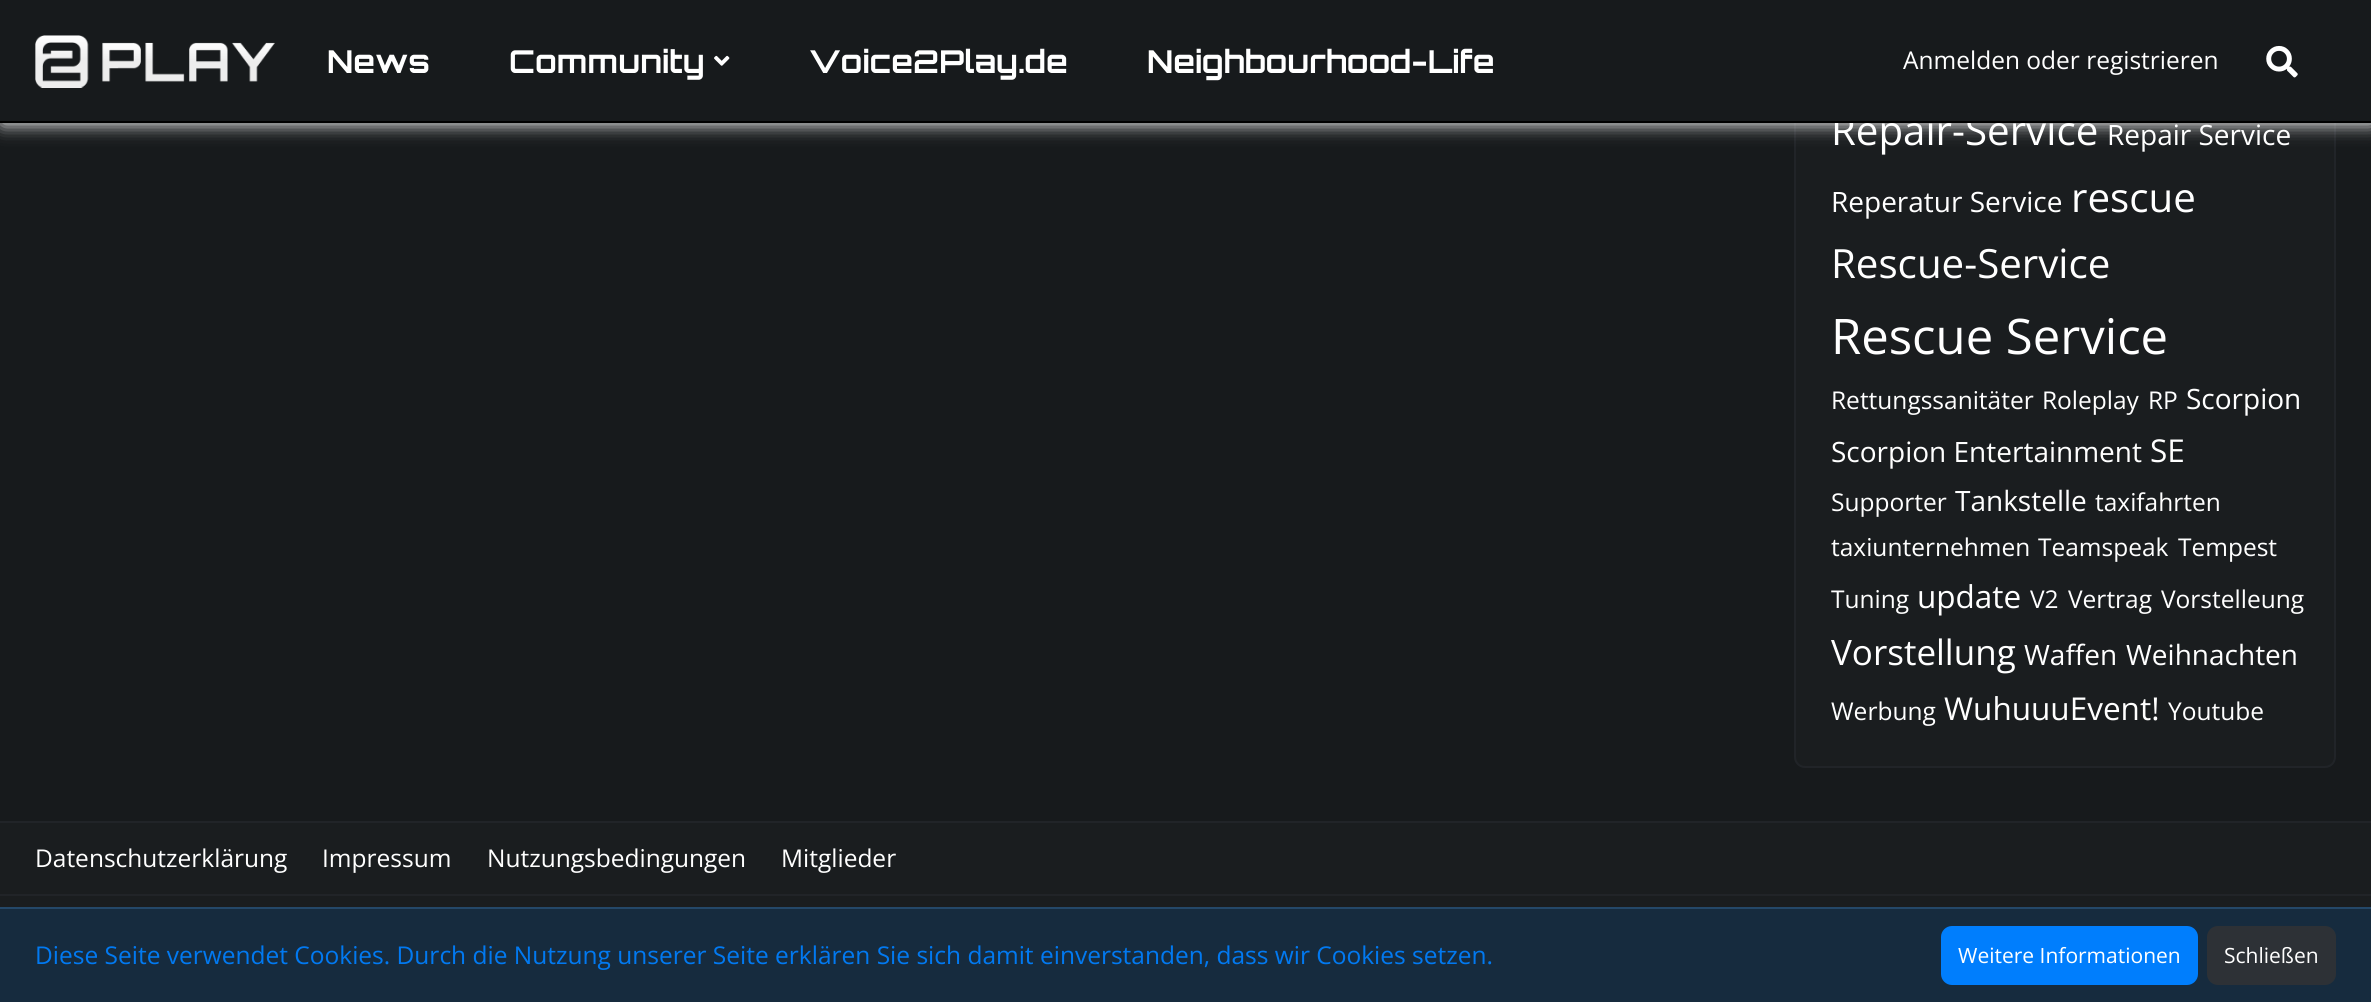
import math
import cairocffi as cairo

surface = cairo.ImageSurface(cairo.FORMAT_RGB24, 2371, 1002)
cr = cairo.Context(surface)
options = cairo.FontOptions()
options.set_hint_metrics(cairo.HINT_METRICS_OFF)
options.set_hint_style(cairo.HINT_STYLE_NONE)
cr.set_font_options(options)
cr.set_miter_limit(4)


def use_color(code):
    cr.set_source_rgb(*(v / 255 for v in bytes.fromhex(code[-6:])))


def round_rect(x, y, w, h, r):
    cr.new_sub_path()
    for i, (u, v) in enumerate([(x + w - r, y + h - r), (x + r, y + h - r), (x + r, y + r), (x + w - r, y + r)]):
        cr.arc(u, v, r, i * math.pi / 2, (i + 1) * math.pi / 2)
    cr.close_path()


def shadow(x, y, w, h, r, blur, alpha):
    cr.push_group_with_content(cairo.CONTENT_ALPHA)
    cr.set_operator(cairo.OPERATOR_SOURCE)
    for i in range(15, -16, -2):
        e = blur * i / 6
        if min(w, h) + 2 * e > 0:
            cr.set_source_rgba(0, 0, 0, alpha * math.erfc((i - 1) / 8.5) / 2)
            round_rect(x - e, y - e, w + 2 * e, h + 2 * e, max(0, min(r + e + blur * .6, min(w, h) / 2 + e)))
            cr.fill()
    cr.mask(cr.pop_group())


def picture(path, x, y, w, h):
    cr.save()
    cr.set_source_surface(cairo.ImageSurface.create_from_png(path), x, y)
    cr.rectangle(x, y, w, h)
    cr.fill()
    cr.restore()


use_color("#171a1c")
cr.paint()
use_color("#1a1d1f")
round_rect(1795, -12, 540, 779, 10)
cr.fill_preserve()
use_color("#212428")
cr.stroke()
use_color("#ffffff")
shadow(2, 2, 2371, 122, 0, 9, 1)
cr.select_font_face("Open Sans")
cr.set_font_size(40.25)
use_color("#ffffff")
cr.move_to(1831, 145)
cr.show_text("Repair-Service")
use_color("#171a1c")
cr.rectangle(0, 0, 2371, 121)
cr.fill()
use_color("#000000")
cr.rectangle(0, 121, 2371, 2)
cr.fill()
picture("img1.png", 35, 35, 240, 53)
cr.select_font_face("Orbitron", cairo.FONT_SLANT_NORMAL, cairo.FONT_WEIGHT_BOLD)
cr.set_font_size(31.5)
use_color("#ffffff")
cr.move_to(327, 73)
cr.show_text("News")
cr.move_to(509, 73)
cr.show_text("Community")
picture("img2.png", 714, 55, 16, 11)
cr.move_to(809, 73)
cr.show_text("Voice2Play.de")
cr.move_to(1147, 73)
cr.show_text("Neighbourhood-Life")
cr.select_font_face("Open Sans")
cr.set_font_size(24.5)
cr.move_to(1903, 69)
cr.show_text("Anmelden oder registrieren")
picture("img3.png", 2266, 45, 32, 33)
cr.set_font_size(28)
cr.move_to(2107, 145)
cr.show_text("Repair Service")
cr.move_to(1831, 212)
cr.show_text("Reperatur Service")
cr.set_font_size(40.25)
cr.move_to(2071, 212)
cr.show_text("rescue")
cr.move_to(1831, 278)
cr.show_text("Rescue-Service")
cr.set_font_size(49)
cr.move_to(1831, 354)
cr.show_text("Rescue Service")
cr.set_font_size(24.5)
cr.move_to(1831, 409)
cr.show_text("Rettungssanitäter")
cr.move_to(2042, 409)
cr.show_text("Roleplay")
cr.move_to(2148, 409)
cr.show_text("RP")
cr.set_font_size(28)
cr.move_to(2186, 409)
cr.show_text("Scorpion")
cr.move_to(1831, 462)
cr.show_text("Scorpion Entertainment")
cr.set_font_size(31.5)
cr.move_to(2150, 462)
cr.show_text("SE")
cr.set_font_size(24.5)
cr.move_to(1831, 511)
cr.show_text("Supporter")
cr.set_font_size(28)
cr.move_to(1955, 511)
cr.show_text("Tankstelle")
cr.set_font_size(24.5)
cr.move_to(2095, 511)
cr.show_text("taxifahrten")
cr.move_to(1831, 556)
cr.show_text("taxiunternehmen")
cr.move_to(2038, 556)
cr.show_text("Teamspeak")
cr.move_to(2178, 556)
cr.show_text("Tempest")
cr.move_to(1831, 608)
cr.show_text("Tuning")
cr.set_font_size(31.5)
cr.move_to(1917, 608)
cr.show_text("update")
cr.set_font_size(24.5)
cr.move_to(2030, 608)
cr.show_text("V2")
cr.move_to(2068, 608)
cr.show_text("Vertrag")
cr.move_to(2161, 608)
cr.show_text("Vorstelleung")
cr.set_font_size(35)
cr.move_to(1831, 665)
cr.show_text("Vorstellung")
cr.set_font_size(28)
cr.move_to(2024, 665)
cr.show_text("Waffen")
cr.move_to(2126, 665)
cr.show_text("Weihnachten")
cr.set_font_size(24.5)
cr.move_to(1831, 720)
cr.show_text("Werbung")
cr.set_font_size(31.5)
cr.move_to(1944, 720)
cr.show_text("WuhuuuEvent!")
cr.set_font_size(24.5)
cr.move_to(2168, 720)
cr.show_text("Youtube")
use_color("#1a1d1f")
cr.rectangle(0, 823, 2371, 71)
cr.fill()
use_color("#212428")
cr.rectangle(0, 821, 2371, 2)
cr.fill()
cr.rectangle(0, 894, 2371, 2)
cr.fill()
use_color("#ffffff")
cr.move_to(35, 867)
cr.show_text("Datenschutzerklärung")
cr.move_to(322, 867)
cr.show_text("Impressum")
cr.move_to(487, 867)
cr.show_text("Nutzungsbedingungen")
cr.move_to(781, 867)
cr.show_text("Mitglieder")
use_color("#1a1d1f")
cr.rectangle(0, 896, 2371, 11)
cr.fill()
use_color("#162b3e")
cr.rectangle(0, 909, 2371, 93)
cr.fill()
use_color("#244869")
cr.rectangle(0, 907, 2371, 2)
cr.fill()
use_color("#0179f1")
cr.move_to(35, 964)
cr.show_text("Diese Seite verwendet Cookies. Durch die Nutzung unserer Seite erklären Sie sich damit einverstanden, dass wir Cookies setzen.")
use_color("#007efd")
round_rect(1941, 926, 257, 59, 11)
cr.fill()
cr.set_font_size(21)
use_color("#ffffff")
cr.move_to(1958, 963)
cr.show_text("Weitere Informationen")
use_color("#2d3136")
round_rect(2207, 926, 129, 59, 11)
cr.fill()
use_color("#ffffff")
cr.move_to(2224, 963)
cr.show_text("Schließen")
surface.write_to_png("result.png")
